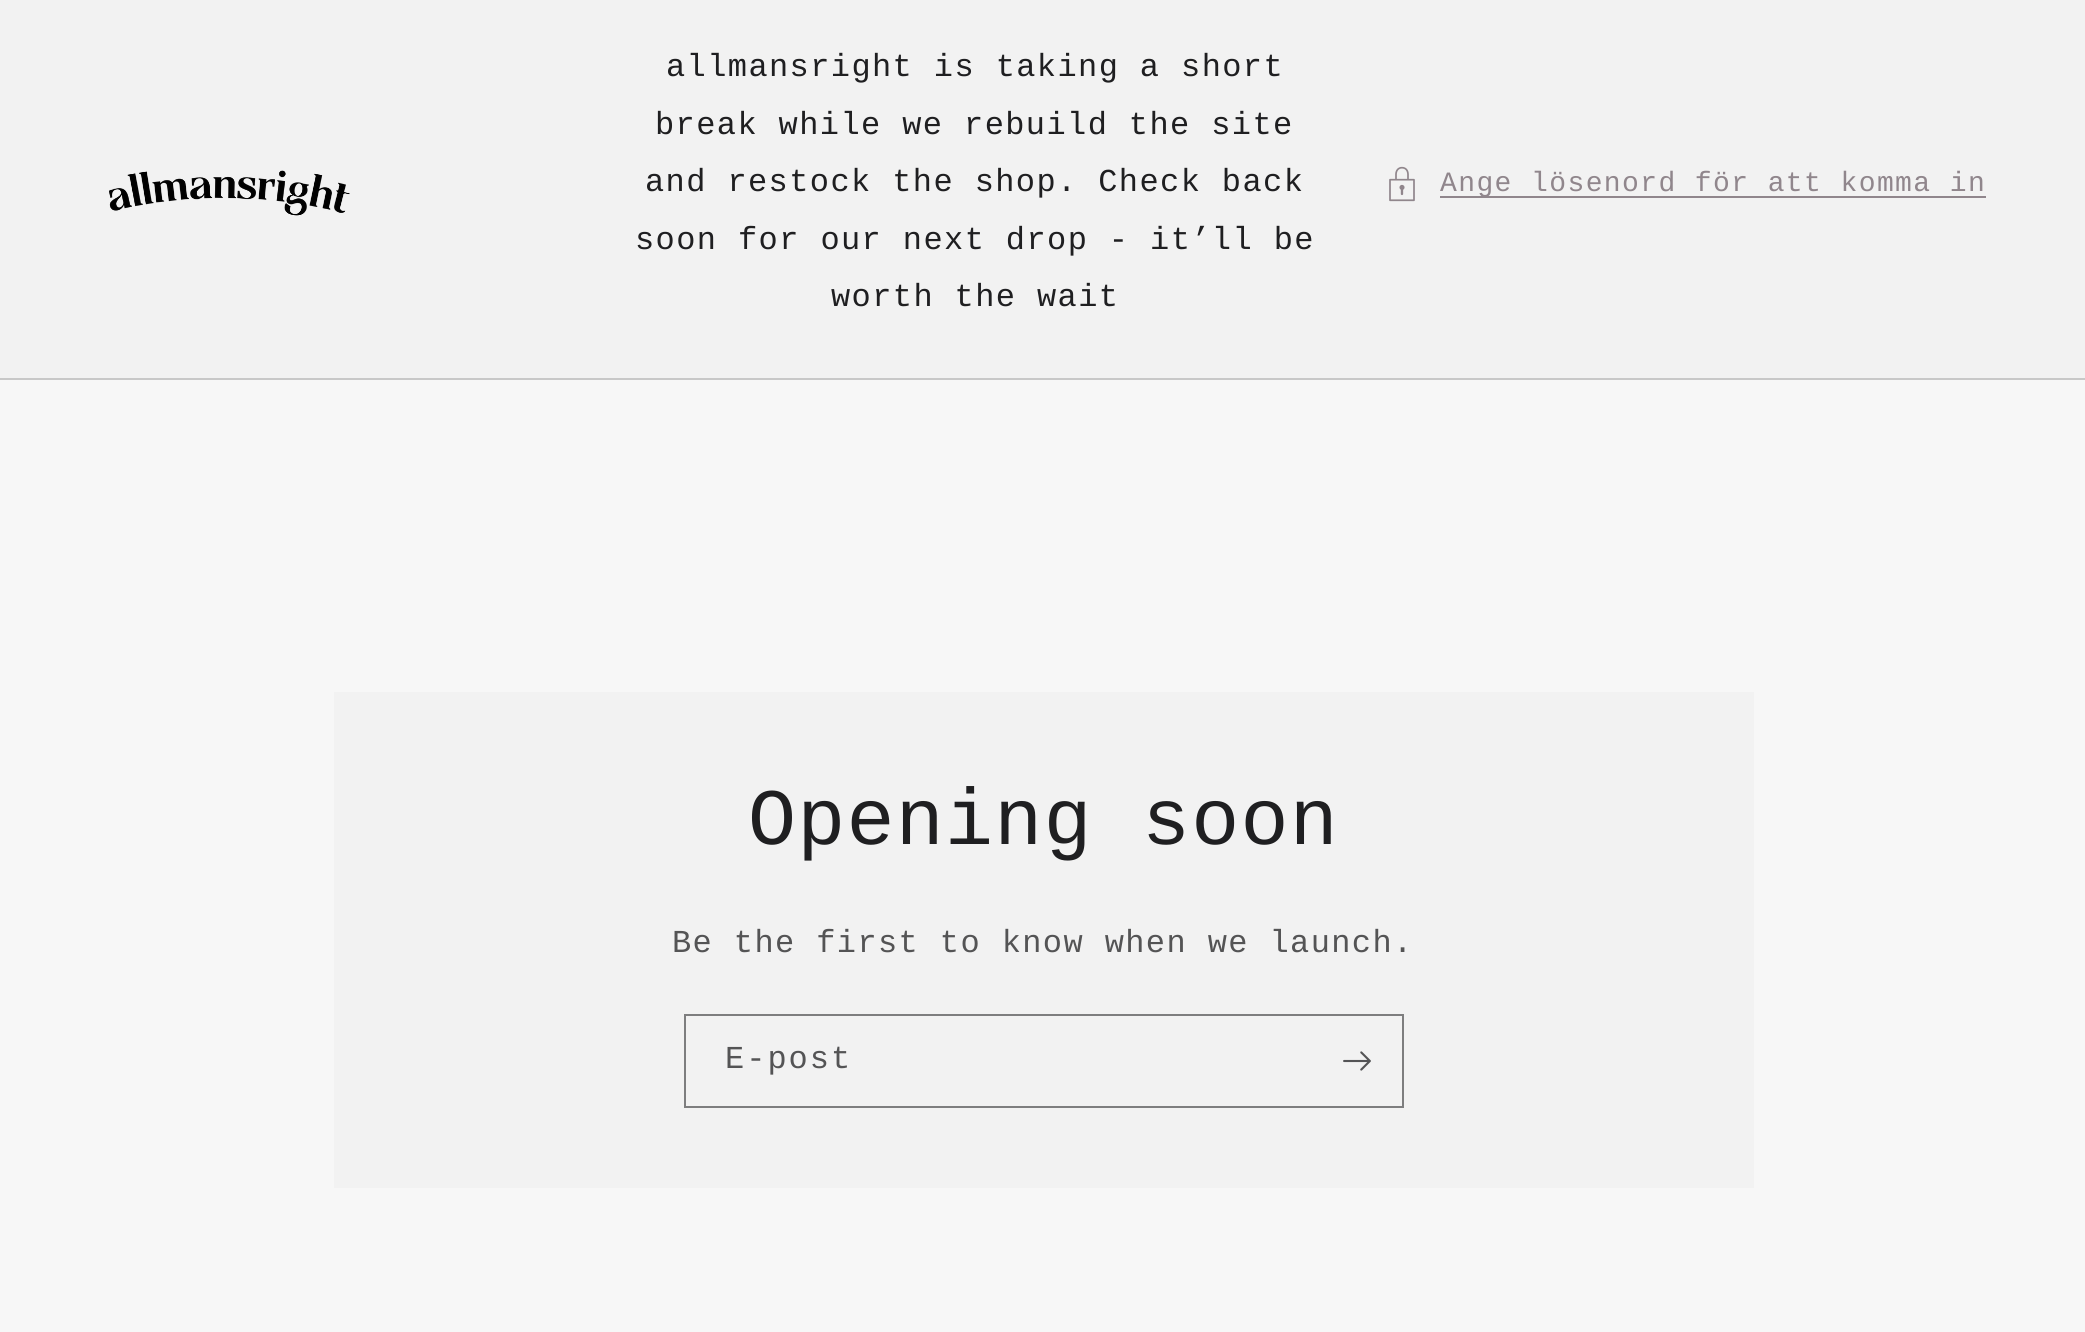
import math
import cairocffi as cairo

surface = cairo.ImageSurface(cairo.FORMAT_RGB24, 2085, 1332)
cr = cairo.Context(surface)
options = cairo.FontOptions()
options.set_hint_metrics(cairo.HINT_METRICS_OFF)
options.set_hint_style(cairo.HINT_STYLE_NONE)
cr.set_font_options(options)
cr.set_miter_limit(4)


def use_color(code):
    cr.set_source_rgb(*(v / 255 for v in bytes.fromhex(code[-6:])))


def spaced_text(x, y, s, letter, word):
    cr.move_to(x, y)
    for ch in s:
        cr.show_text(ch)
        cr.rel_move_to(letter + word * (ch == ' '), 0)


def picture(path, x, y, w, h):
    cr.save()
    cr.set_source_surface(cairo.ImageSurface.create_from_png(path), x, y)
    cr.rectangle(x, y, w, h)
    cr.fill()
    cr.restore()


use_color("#f2f2f2")
cr.paint()
picture("img1.png", 109, 170, 241, 46)
cr.select_font_face("Liberation Mono")
cr.set_font_size(32)
use_color("#1f1f21")
spaced_text(666, 76, "allmansright is taking a short", 1.4, 0)
spaced_text(655, 134, "break while we rebuild the site", 1.4, 0)
spaced_text(645, 191, "and restock the shop. Check back", 1.4, 0)
spaced_text(635, 249, "soon for our next drop - it’ll be", 1.4, 0)
spaced_text(831, 306, "worth the wait", 1.4, 0)
picture("img2.png", 1389, 166, 26, 36)
use_color("#90868c")
cr.rectangle(1440, 196, 546, 2)
cr.fill()
cr.set_font_size(28)
spaced_text(1440, 191, "Ange lösenord för att komma in", 1.4, 0)
use_color("#c8c8c8")
cr.rectangle(0, 378, 2085, 2)
cr.fill()
use_color("#f7f7f7")
cr.rectangle(0, 380, 2085, 952)
cr.fill()
use_color("#f2f2f2")
cr.rectangle(334, 692, 1420, 496)
cr.fill()
cr.set_font_size(80)
use_color("#1f1f21")
spaced_text(748, 844, "Opening soon", 1.25, 0)
cr.set_font_size(32)
use_color("#545455")
spaced_text(672, 952, "Be the first to know when we launch.", 1.4, 0)
cr.rectangle(685, 1015, 718, 92)
use_color("#7e7e7f")
cr.stroke()
use_color("#545455")
spaced_text(725, 1068, "E-post", 2, 0)
picture("img3.png", 1343, 1051, 28, 20)
surface.write_to_png("result.png")
